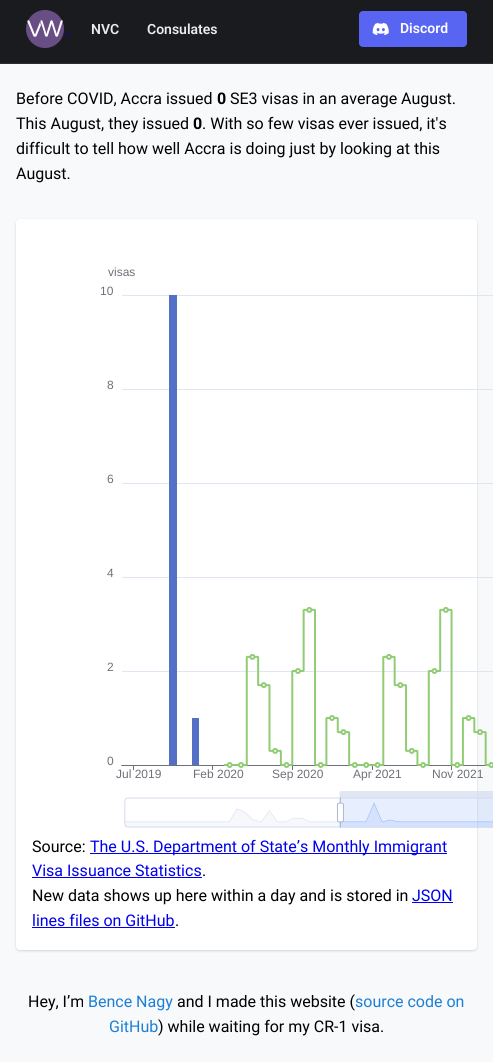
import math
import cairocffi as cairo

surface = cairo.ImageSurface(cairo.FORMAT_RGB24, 493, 1062)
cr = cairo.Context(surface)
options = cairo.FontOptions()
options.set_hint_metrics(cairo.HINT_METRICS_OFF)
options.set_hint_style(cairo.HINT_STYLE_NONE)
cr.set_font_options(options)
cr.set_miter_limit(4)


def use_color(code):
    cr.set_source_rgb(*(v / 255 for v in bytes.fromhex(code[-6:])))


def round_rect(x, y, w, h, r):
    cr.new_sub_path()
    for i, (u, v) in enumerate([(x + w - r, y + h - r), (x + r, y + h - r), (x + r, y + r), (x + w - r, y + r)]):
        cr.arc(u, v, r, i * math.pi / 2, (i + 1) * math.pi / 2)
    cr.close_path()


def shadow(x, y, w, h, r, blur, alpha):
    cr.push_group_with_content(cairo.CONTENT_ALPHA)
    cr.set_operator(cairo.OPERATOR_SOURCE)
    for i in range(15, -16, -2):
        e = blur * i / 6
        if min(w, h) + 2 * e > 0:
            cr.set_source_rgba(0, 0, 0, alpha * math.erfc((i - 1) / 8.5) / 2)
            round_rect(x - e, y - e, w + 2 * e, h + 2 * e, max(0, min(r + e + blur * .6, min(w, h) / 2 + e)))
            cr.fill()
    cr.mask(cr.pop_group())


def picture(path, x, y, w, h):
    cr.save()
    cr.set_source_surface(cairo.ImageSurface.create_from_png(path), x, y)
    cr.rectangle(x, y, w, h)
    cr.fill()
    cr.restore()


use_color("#f8f9fa")
cr.paint()
use_color("#1a1b1e")
cr.rectangle(0, 0, 493, 63)
cr.fill()
use_color("#2c2e33")
cr.rectangle(0, 63, 493, 1)
cr.fill()
picture("img1.png", 26, 10, 38, 38)
use_color("#0000ee")
cr.rectangle(66, 35, 4, 1)
cr.fill()
cr.select_font_face("Roboto SemiBold")
cr.set_font_size(14)
use_color("#e9ecef")
cr.move_to(91, 34)
cr.show_text("NVC")
cr.move_to(147, 34)
cr.show_text("Consulates")
use_color("#5865f2")
round_rect(359, 11, 108, 36, 4)
cr.fill()
picture("img2.png", 372, 22, 17, 14)
use_color("#ffffff")
cr.move_to(400, 33)
cr.show_text("Discord")
cr.select_font_face("Roboto")
cr.set_font_size(16)
use_color("#000000")
cr.move_to(16, 104)
cr.show_text("Before COVID, Accra issued")
cr.select_font_face("Roboto", cairo.FONT_SLANT_NORMAL, cairo.FONT_WEIGHT_BOLD)
cr.move_to(217, 104)
cr.show_text("0")
cr.select_font_face("Roboto")
cr.move_to(230, 104)
cr.show_text("SE3 visas in an average August.")
cr.move_to(16, 129)
cr.show_text("This August, they issued")
cr.select_font_face("Roboto", cairo.FONT_SLANT_NORMAL, cairo.FONT_WEIGHT_BOLD)
cr.move_to(193, 129)
cr.show_text("0")
cr.select_font_face("Roboto")
cr.move_to(202, 129)
cr.show_text(". With so few visas ever issued, it's")
cr.move_to(16, 154)
cr.show_text("difficult to tell how well Accra is doing just by looking at this")
cr.move_to(16, 179)
cr.show_text("August.")
use_color("#000000")
shadow(16, 220, 461, 731, 4, 1, 0.1)
shadow(16, 220, 461, 731, 4, 1.5, 0.05)
use_color("#ffffff")
round_rect(16, 219, 461, 731, 4)
cr.fill()
picture("img3.png", 121, 295, 372, 533)
cr.select_font_face("Liberation Sans")
cr.set_font_size(12)
use_color("#6e7079")
cr.move_to(108, 276)
cr.show_text("visas")
cr.move_to(100, 295)
cr.show_text("10")
cr.move_to(107, 389)
cr.show_text("8")
cr.move_to(107, 483)
cr.show_text("6")
cr.move_to(107, 577)
cr.show_text("4")
cr.move_to(107, 671)
cr.show_text("2")
cr.move_to(107, 765)
cr.show_text("0")
cr.move_to(116, 778)
cr.show_text("Jul 2019")
cr.move_to(193, 778)
cr.show_text("Feb 2020")
cr.move_to(272, 778)
cr.show_text("Sep 2020")
cr.move_to(353, 778)
cr.show_text("Apr 2021")
cr.move_to(432, 778)
cr.show_text("Nov 2021")
cr.select_font_face("Roboto")
cr.set_font_size(16)
use_color("#000000")
cr.move_to(32, 852)
cr.show_text("Source:")
use_color("#0000ee")
cr.rectangle(90, 853, 357, 1)
cr.fill()
cr.move_to(90, 852)
cr.show_text("The U.S. Department of State’s Monthly Immigrant")
cr.move_to(32, 876)
cr.show_text("Visa Issuance Statistics")
cr.rectangle(32, 877, 170, 1)
cr.fill()
use_color("#000000")
cr.move_to(202, 876)
cr.show_text(".")
cr.move_to(32, 901)
cr.show_text("New data shows up here within a day and is stored in")
use_color("#0000ee")
cr.move_to(412, 901)
cr.show_text("JSON")
cr.rectangle(412, 902, 41, 1)
cr.fill()
cr.move_to(32, 926)
cr.show_text("lines files on GitHub")
cr.rectangle(32, 927, 143, 1)
cr.fill()
use_color("#000000")
cr.move_to(175, 926)
cr.show_text(".")
cr.move_to(28, 1007)
cr.show_text("Hey, I’m")
use_color("#1c7ed6")
cr.move_to(88, 1007)
cr.show_text("Bence Nagy")
use_color("#000000")
cr.move_to(177, 1007)
cr.show_text("and I made this website (")
use_color("#1c7ed6")
cr.move_to(355, 1007)
cr.show_text("source code on")
cr.move_to(109, 1032)
cr.show_text("GitHub")
use_color("#000000")
cr.move_to(158, 1032)
cr.show_text(") while waiting for my CR-1 visa.")
surface.write_to_png("result.png")
